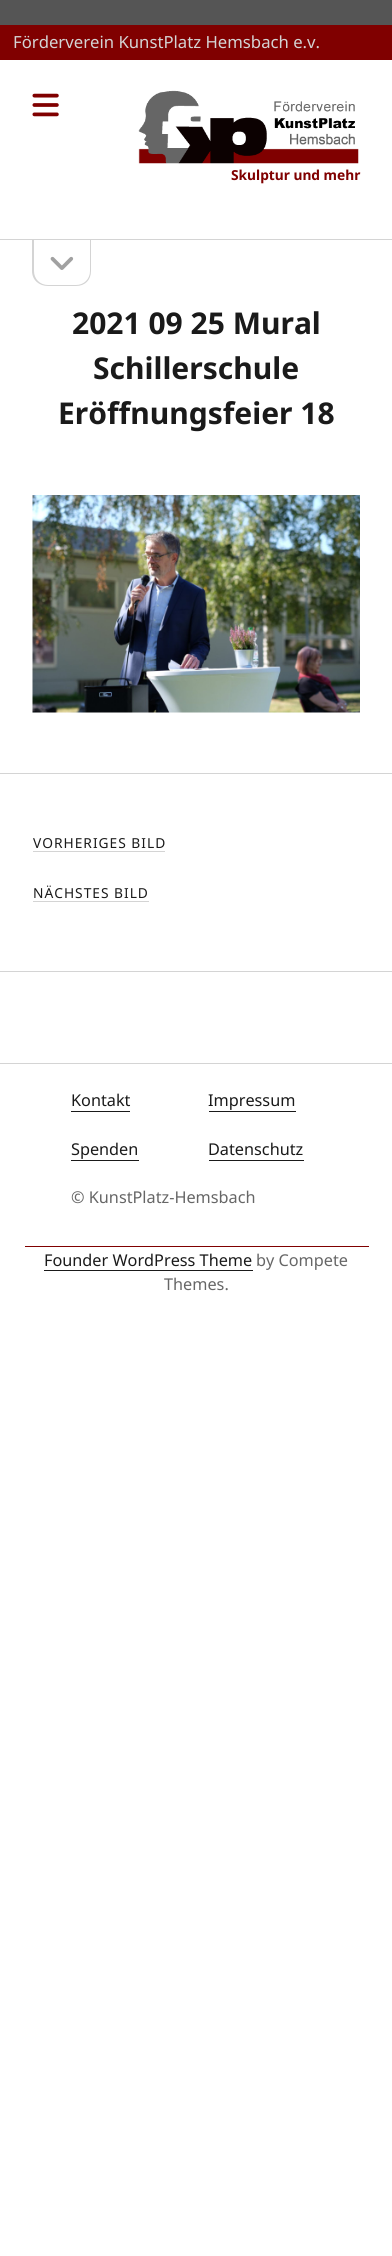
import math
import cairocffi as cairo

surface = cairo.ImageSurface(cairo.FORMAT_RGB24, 392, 2256)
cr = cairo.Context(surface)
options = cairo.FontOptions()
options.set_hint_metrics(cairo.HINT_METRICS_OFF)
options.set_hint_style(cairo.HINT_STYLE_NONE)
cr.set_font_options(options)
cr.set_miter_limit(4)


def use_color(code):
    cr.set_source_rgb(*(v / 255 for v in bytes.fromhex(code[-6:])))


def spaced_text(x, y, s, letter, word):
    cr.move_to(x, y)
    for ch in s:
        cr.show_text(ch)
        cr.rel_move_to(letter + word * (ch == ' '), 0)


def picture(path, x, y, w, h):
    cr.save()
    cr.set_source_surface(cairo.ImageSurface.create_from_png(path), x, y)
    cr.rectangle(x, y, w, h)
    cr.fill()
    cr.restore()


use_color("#ffffff")
cr.paint()
use_color("#555555")
cr.rectangle(0, 0, 392, 25)
cr.fill()
use_color("#800000")
cr.rectangle(0, 25, 392, 35)
cr.fill()
cr.select_font_face("Noto Sans")
cr.set_font_size(16.7)
use_color("#d4d4d4")
cr.move_to(13, 48)
cr.show_text("Förderverein KunstPlatz Hemsbach e.v.")
cr.rectangle(0, 239, 392, 1)
cr.fill()
picture("img1.png", 32, 93, 27, 24)
picture("img2.png", 138, 90, 221, 74)
cr.select_font_face("Noto Sans", cairo.FONT_SLANT_NORMAL, cairo.FONT_WEIGHT_BOLD)
cr.set_font_size(13.75)
use_color("#800000")
cr.move_to(231, 180)
cr.show_text("Skulptur und mehr")
use_color("#d4d4d4")
cr.set_fill_rule(cairo.FILL_RULE_EVEN_ODD)
cr.new_path()
cr.move_to(32, 240)
cr.line_to(91, 240)
cr.line_to(91, 271)
cr.curve_to(91, 280, 85, 286, 76, 286)
cr.line_to(48, 286)
cr.curve_to(39, 286, 32, 280, 32, 271)
cr.close_path()
cr.move_to(34, 240)
cr.line_to(90, 240)
cr.line_to(90, 271)
cr.curve_to(90, 279, 84, 285, 76, 285)
cr.line_to(48, 285)
cr.curve_to(40, 285, 34, 279, 34, 271)
cr.close_path()
cr.fill()
picture("img3.png", 50, 256, 24, 14)
cr.set_font_size(30)
use_color("#1a1a1a")
cr.move_to(72, 334)
cr.show_text("2021 09 25 Mural")
cr.move_to(93, 379)
cr.show_text("Schillerschule")
cr.move_to(58, 424)
cr.show_text("Eröffnungsfeier 18")
picture("img4.png", 32, 495, 328, 218)
use_color("#d4d4d4")
cr.rectangle(0, 773, 392, 1)
cr.fill()
cr.select_font_face("Noto Sans")
cr.set_font_size(13.75)
use_color("#1a1a1a")
spaced_text(33, 848, "VORHERIGES BILD", 1, 0)
use_color("#d4d4d4")
cr.rectangle(33, 851, 132, 1)
cr.fill()
use_color("#1a1a1a")
spaced_text(33, 898, "NÄCHSTES BILD", 1, 0)
use_color("#d4d4d4")
cr.rectangle(33, 901, 116, 1)
cr.fill()
cr.rectangle(0, 971, 392, 1)
cr.fill()
cr.rectangle(0, 1063, 392, 1)
cr.fill()
use_color("#800000")
cr.rectangle(25, 1246, 344, 1)
cr.fill()
cr.set_font_size(16.25)
use_color("#1a1a1a")
cr.move_to(71, 1106)
cr.show_text("Kontakt")
cr.rectangle(71, 1111, 59, 1)
cr.fill()
cr.move_to(208, 1106)
cr.show_text("Impressum")
cr.rectangle(209, 1111, 87, 1)
cr.fill()
cr.move_to(71, 1155)
cr.show_text("Spenden")
cr.rectangle(71, 1160, 68, 1)
cr.fill()
cr.move_to(208, 1155)
cr.show_text("Datenschutz")
cr.rectangle(209, 1160, 95, 1)
cr.fill()
use_color("#666666")
cr.move_to(71, 1203)
cr.show_text("© KunstPlatz-Hemsbach")
use_color("#1a1a1a")
cr.move_to(44, 1266)
cr.show_text("Founder WordPress Theme")
cr.rectangle(44, 1270, 209, 1)
cr.fill()
use_color("#666666")
cr.move_to(256, 1266)
cr.show_text("by Compete")
cr.move_to(164, 1290)
cr.show_text("Themes.")
surface.write_to_png("result.png")
